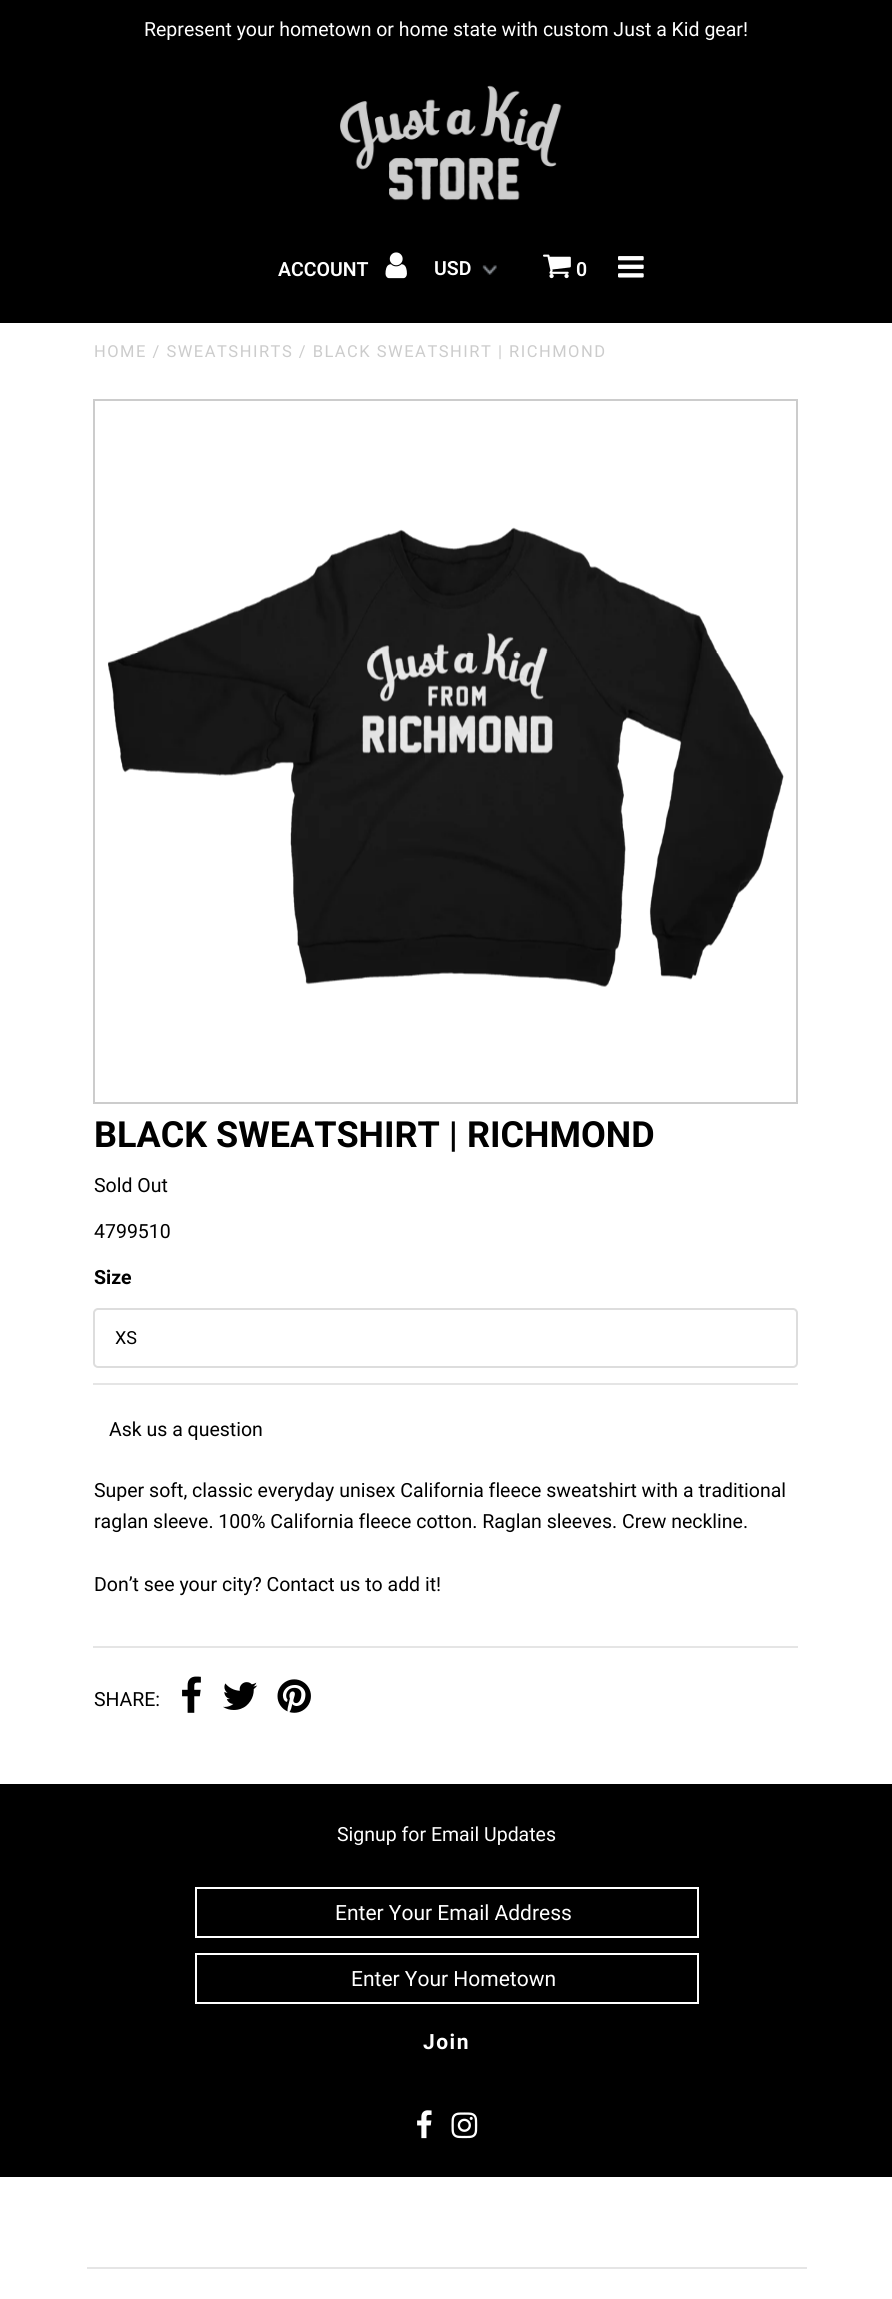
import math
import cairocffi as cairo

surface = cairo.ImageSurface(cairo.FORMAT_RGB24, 892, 2299)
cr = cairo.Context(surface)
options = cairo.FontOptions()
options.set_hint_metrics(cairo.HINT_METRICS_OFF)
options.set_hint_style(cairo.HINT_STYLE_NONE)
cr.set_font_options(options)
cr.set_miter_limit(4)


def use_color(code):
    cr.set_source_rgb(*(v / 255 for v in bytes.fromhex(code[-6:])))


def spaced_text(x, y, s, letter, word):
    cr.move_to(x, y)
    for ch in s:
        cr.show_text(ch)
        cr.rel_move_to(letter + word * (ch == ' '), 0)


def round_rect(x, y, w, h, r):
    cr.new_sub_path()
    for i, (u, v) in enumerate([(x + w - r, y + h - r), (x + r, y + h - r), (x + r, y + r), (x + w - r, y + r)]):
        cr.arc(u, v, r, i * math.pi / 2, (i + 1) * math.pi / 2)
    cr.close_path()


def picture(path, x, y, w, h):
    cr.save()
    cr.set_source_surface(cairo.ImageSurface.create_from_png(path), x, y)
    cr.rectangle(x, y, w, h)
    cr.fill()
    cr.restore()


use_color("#ffffff")
cr.paint()
use_color("#000000")
cr.rectangle(0, 0, 892, 323)
cr.fill()
cr.select_font_face("Roboto")
cr.set_font_size(19.5)
use_color("#ffffff")
cr.move_to(144, 36)
cr.show_text("Represent your hometown or home state with custom Just a Kid gear!")
picture("img1.png", 340, 85, 222, 116)
cr.select_font_face("Roboto SemiBold")
cr.move_to(278, 276)
cr.show_text("ACCOUNT")
picture("img2.png", 385, 252, 22, 27)
picture("img3.png", 482, 265, 15, 10)
cr.move_to(434, 275)
cr.show_text("USD")
picture("img4.png", 543, 254, 28, 25)
cr.move_to(576, 276)
cr.show_text("0")
picture("img5.png", 618, 256, 26, 22)
cr.select_font_face("Roboto")
cr.set_font_size(16.5)
use_color("#cccccc")
spaced_text(94, 357, "HOME / SWEATSHIRTS / BLACK SWEATSHIRT | RICHMOND", 1.5, 0)
cr.rectangle(94, 400, 703, 703)
cr.stroke()
picture("img6.png", 107, 527, 677, 460)
cr.select_font_face("Roboto", cairo.FONT_SLANT_NORMAL, cairo.FONT_WEIGHT_BOLD)
cr.set_font_size(36)
use_color("#000000")
cr.move_to(94, 1147)
cr.show_text("BLACK SWEATSHIRT | RICHMOND")
cr.select_font_face("Roboto")
cr.set_font_size(19.5)
cr.move_to(94, 1192)
cr.show_text("Sold Out")
cr.move_to(94, 1238)
cr.show_text("4799510")
use_color("#e5e5e5")
cr.rectangle(93, 1383, 705, 2)
cr.fill()
cr.select_font_face("Roboto", cairo.FONT_SLANT_NORMAL, cairo.FONT_WEIGHT_BOLD)
use_color("#000000")
cr.move_to(94, 1284)
cr.show_text("Size")
round_rect(94, 1309, 703, 58, 4)
use_color("#dddddd")
cr.stroke()
cr.select_font_face("Roboto")
cr.set_font_size(18)
use_color("#000000")
cr.move_to(115, 1344)
cr.show_text("XS")
cr.set_font_size(19.5)
cr.move_to(109, 1436)
cr.show_text("Ask us a question")
cr.move_to(94, 1497)
cr.show_text("Super soft, classic everyday unisex California fleece sweatshirt with a traditional")
cr.move_to(94, 1528)
cr.show_text("raglan sleeve. 100% California fleece cotton. Raglan sleeves. Crew neckline.")
cr.move_to(94, 1591)
cr.show_text("Don’t see your city? Contact us to add it!")
use_color("#e5e5e5")
cr.rectangle(93, 1646, 705, 2)
cr.fill()
use_color("#000000")
cr.move_to(94, 1706)
cr.show_text("SHARE:")
picture("img7.png", 182, 1676, 19, 37)
picture("img8.png", 223, 1682, 35, 28)
picture("img9.png", 277, 1679, 34, 34)
cr.rectangle(0, 1784, 892, 393)
cr.fill()
use_color("#ffffff")
cr.move_to(337, 1841)
cr.show_text("Signup for Email Updates")
cr.rectangle(196, 1888, 502, 49)
cr.stroke()
cr.set_font_size(21)
cr.move_to(335, 1920)
cr.show_text("Enter Your Email Address")
cr.rectangle(196, 1954, 502, 49)
cr.stroke()
cr.move_to(351, 1986)
cr.show_text("Enter Your Hometown")
cr.select_font_face("Roboto", cairo.FONT_SLANT_NORMAL, cairo.FONT_WEIGHT_BOLD)
spaced_text(423, 2049, "Join", 1.5, 0)
picture("img10.png", 417, 2110, 15, 29)
picture("img11.png", 451, 2112, 27, 27)
use_color("#e5e5e5")
cr.rectangle(87, 2267, 720, 2)
cr.fill()
surface.write_to_png("result.png")
